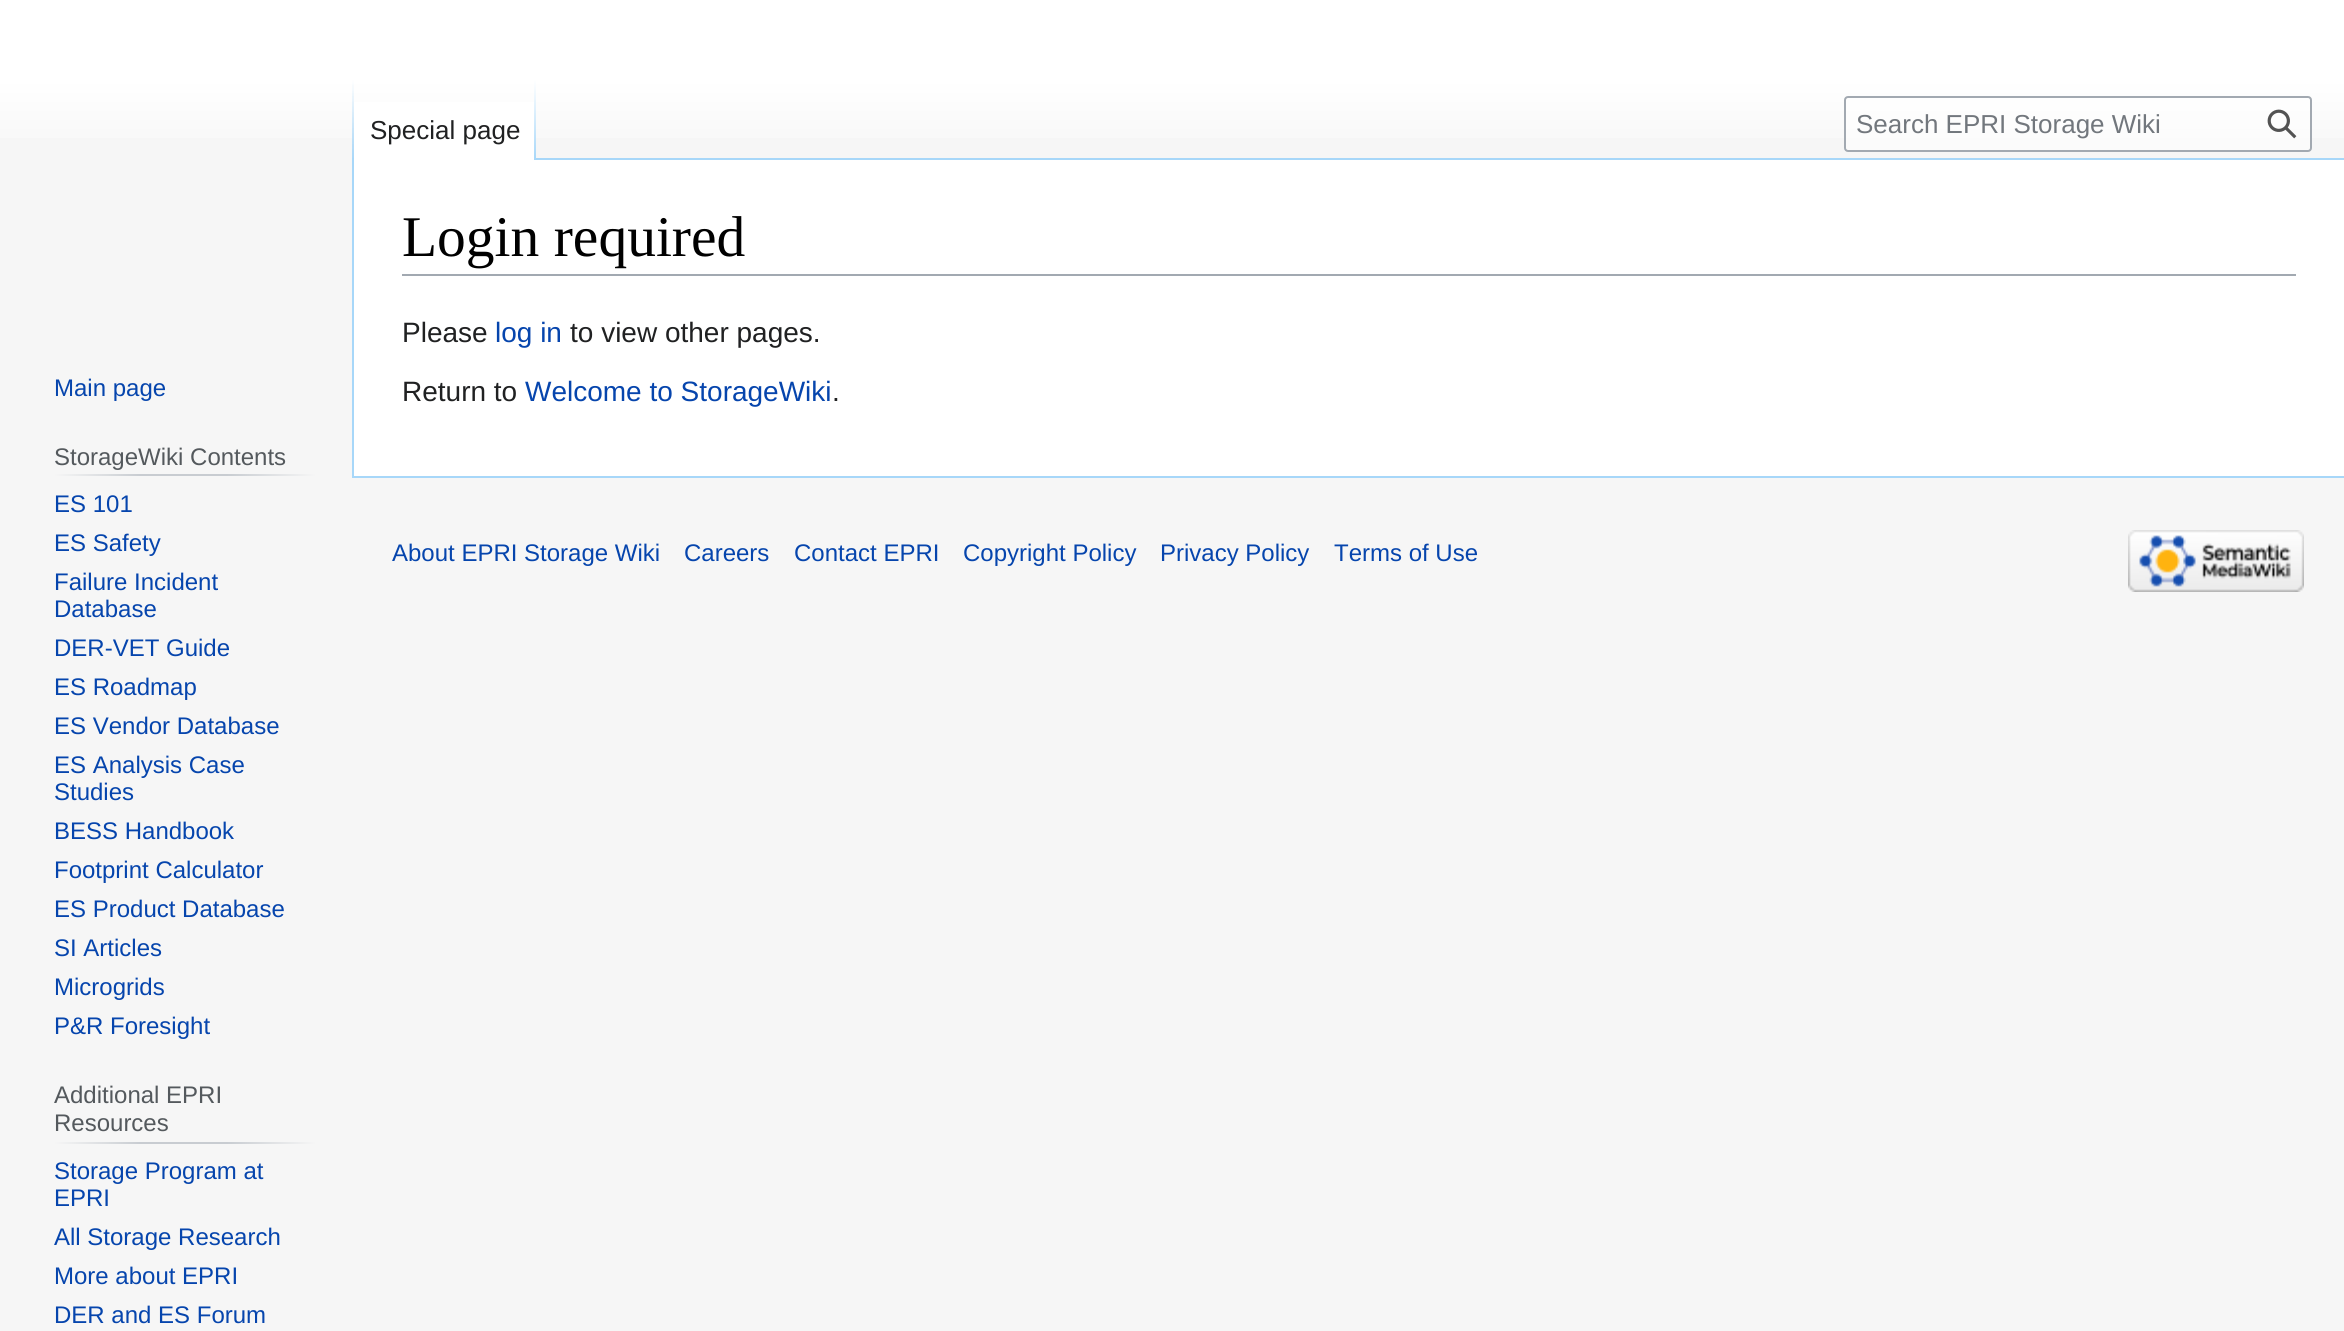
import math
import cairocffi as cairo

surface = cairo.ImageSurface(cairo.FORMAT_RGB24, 2344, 1331)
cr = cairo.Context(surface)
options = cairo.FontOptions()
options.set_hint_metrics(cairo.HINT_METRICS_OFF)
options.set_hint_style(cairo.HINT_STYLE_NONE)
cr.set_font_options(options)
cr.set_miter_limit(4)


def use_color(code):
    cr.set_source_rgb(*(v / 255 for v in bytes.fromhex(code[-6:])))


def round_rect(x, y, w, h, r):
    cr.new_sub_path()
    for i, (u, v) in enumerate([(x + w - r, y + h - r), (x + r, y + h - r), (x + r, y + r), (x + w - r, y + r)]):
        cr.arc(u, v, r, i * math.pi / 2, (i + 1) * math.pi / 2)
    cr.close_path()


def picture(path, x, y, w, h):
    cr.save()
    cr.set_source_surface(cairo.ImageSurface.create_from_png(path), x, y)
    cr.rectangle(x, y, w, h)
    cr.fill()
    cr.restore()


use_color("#f6f6f6")
cr.paint()
gradient = cairo.LinearGradient(1172, 0, 1172, 160)
gradient.add_color_stop_rgba(0.5, 1, 1, 1, 1)
gradient.add_color_stop_rgba(1, 0.965, 0.965, 0.965, 1)
cr.set_source(gradient)
cr.rectangle(0, 0, 2344, 138)
cr.fill()
use_color("#a7d7f9")
cr.rectangle(352, 476, 1992, 2)
cr.fill()
cr.rectangle(352, 158, 2, 320)
cr.fill()
gradient = cairo.LinearGradient(353, 80, 353, 160)
gradient.add_color_stop_rgba(0, 0.655, 0.843, 0.976, 0)
gradient.add_color_stop_rgba(1, 0.655, 0.843, 0.976, 1)
cr.set_source(gradient)
cr.rectangle(352, 80, 2, 80)
cr.fill()
use_color("#ffffff")
cr.rectangle(354, 102, 180, 58)
cr.fill()
gradient = cairo.LinearGradient(535, 80, 535, 160)
gradient.add_color_stop_rgba(0, 1, 1, 1, 1)
gradient.add_color_stop_rgba(1, 0.655, 0.843, 0.976, 1)
cr.set_source(gradient)
cr.rectangle(534, 80, 2, 80)
cr.fill()
cr.select_font_face("Liberation Sans")
cr.set_font_size(26)
use_color("#202122")
cr.move_to(370, 139)
cr.show_text("Special page")
cr.set_source_rgba(1, 1, 1, 0.5)
round_rect(1845, 97, 466, 54, 3)
cr.fill_preserve()
use_color("#a2a9b1")
cr.stroke()
use_color("#72777d")
cr.move_to(1856, 133)
cr.show_text("Search EPRI Storage Wiki")
picture("img1.png", 2267, 109, 30, 30)
cr.set_font_size(24)
use_color("#0645ad")
cr.move_to(54, 396)
cr.show_text("Main page")
gradient = cairo.LinearGradient(54, 475, 316, 475)
gradient.add_color_stop_rgba(0, 0.965, 0.965, 0.965, 1)
gradient.add_color_stop_rgba(0.33, 0.784, 0.8, 0.82, 1)
gradient.add_color_stop_rgba(0.66, 0.784, 0.8, 0.82, 1)
gradient.add_color_stop_rgba(1, 0.965, 0.965, 0.965, 1)
cr.set_source(gradient)
cr.rectangle(54, 474, 262, 2)
cr.fill()
use_color("#54595d")
cr.move_to(54, 465)
cr.show_text("StorageWiki Contents")
use_color("#0645ad")
cr.move_to(54, 512)
cr.show_text("ES 101")
cr.move_to(54, 551)
cr.show_text("ES Safety")
cr.move_to(54, 590)
cr.show_text("Failure Incident")
cr.move_to(54, 617)
cr.show_text("Database")
cr.move_to(54, 656)
cr.show_text("DER-VET Guide")
cr.move_to(54, 695)
cr.show_text("ES Roadmap")
cr.move_to(54, 734)
cr.show_text("ES Vendor Database")
cr.move_to(54, 773)
cr.show_text("ES Analysis Case")
cr.move_to(54, 800)
cr.show_text("Studies")
cr.move_to(54, 839)
cr.show_text("BESS Handbook")
cr.move_to(54, 878)
cr.show_text("Footprint Calculator")
cr.move_to(54, 917)
cr.show_text("ES Product Database")
cr.move_to(54, 956)
cr.show_text("SI Articles")
cr.move_to(54, 995)
cr.show_text("Microgrids")
cr.move_to(54, 1034)
cr.show_text("P&R Foresight")
gradient = cairo.LinearGradient(54, 1143, 316, 1143)
gradient.add_color_stop_rgba(0, 0.965, 0.965, 0.965, 1)
gradient.add_color_stop_rgba(0.33, 0.784, 0.8, 0.82, 1)
gradient.add_color_stop_rgba(0.66, 0.784, 0.8, 0.82, 1)
gradient.add_color_stop_rgba(1, 0.965, 0.965, 0.965, 1)
cr.set_source(gradient)
cr.rectangle(54, 1142, 262, 2)
cr.fill()
use_color("#54595d")
cr.move_to(54, 1103)
cr.show_text("Additional EPRI")
cr.move_to(54, 1131)
cr.show_text("Resources")
use_color("#0645ad")
cr.move_to(54, 1179)
cr.show_text("Storage Program at")
cr.move_to(54, 1206)
cr.show_text("EPRI")
cr.move_to(54, 1245)
cr.show_text("All Storage Research")
cr.move_to(54, 1284)
cr.show_text("More about EPRI")
cr.move_to(54, 1323)
cr.show_text("DER and ES Forum")
use_color("#ffffff")
cr.rectangle(354, 160, 1990, 316)
cr.fill()
use_color("#a7d7f9")
cr.rectangle(536, 158, 1808, 2)
cr.fill()
use_color("#a2a9b1")
cr.rectangle(402, 274, 1894, 2)
cr.fill()
cr.select_font_face("Liberation Serif")
cr.set_font_size(57.5)
use_color("#000000")
cr.move_to(402, 256)
cr.show_text("Login required")
cr.select_font_face("Liberation Sans")
cr.set_font_size(28)
use_color("#202122")
cr.move_to(402, 342)
cr.show_text("Please")
use_color("#0645ad")
cr.move_to(495, 342)
cr.show_text("log in")
use_color("#202122")
cr.move_to(570, 342)
cr.show_text("to view other pages.")
cr.move_to(402, 401)
cr.show_text("Return to")
use_color("#0645ad")
cr.move_to(525, 401)
cr.show_text("Welcome to StorageWiki")
use_color("#202122")
cr.move_to(832, 401)
cr.show_text(".")
cr.set_font_size(24)
use_color("#0645ad")
cr.move_to(392, 561)
cr.show_text("About EPRI Storage Wiki")
cr.move_to(684, 561)
cr.show_text("Careers")
cr.move_to(794, 561)
cr.show_text("Contact EPRI")
cr.move_to(963, 561)
cr.show_text("Copyright Policy")
cr.move_to(1160, 561)
cr.show_text("Privacy Policy")
cr.move_to(1334, 561)
cr.show_text("Terms of Use")
picture("img2.png", 2128, 530, 176, 62)
surface.write_to_png("result.png")
